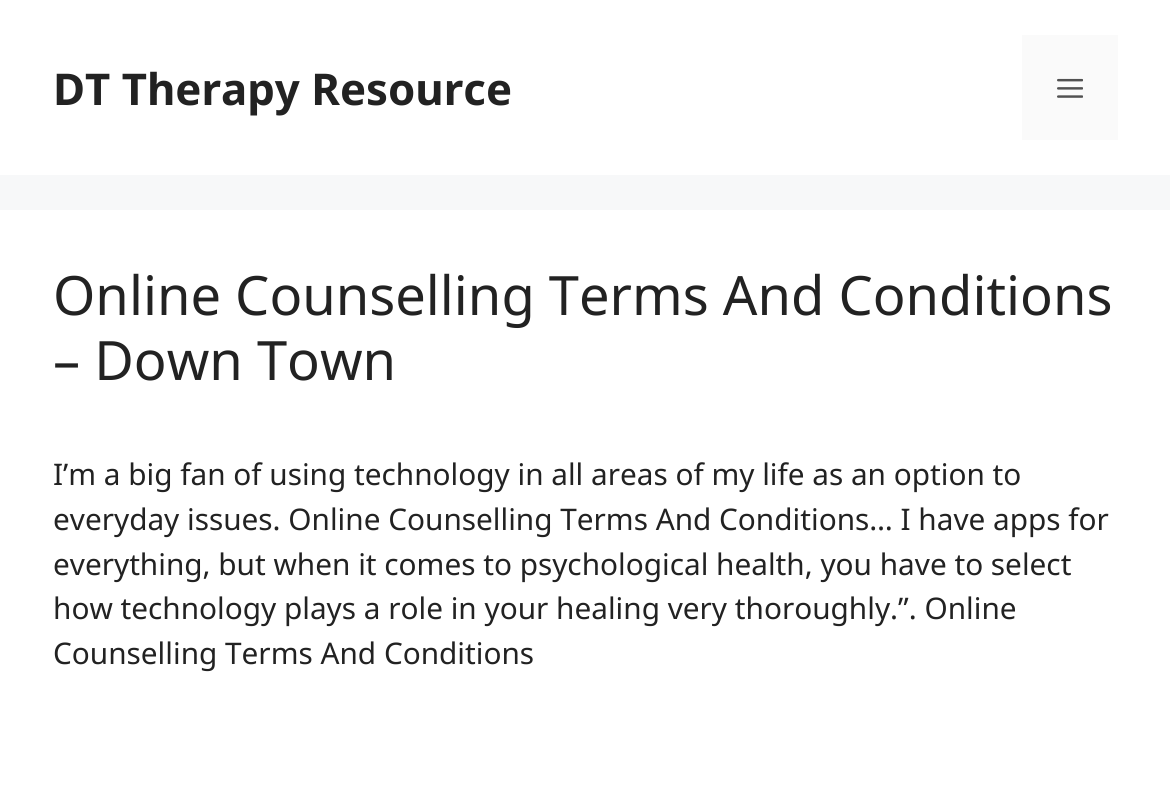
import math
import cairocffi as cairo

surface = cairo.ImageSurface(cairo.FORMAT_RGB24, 1170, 802)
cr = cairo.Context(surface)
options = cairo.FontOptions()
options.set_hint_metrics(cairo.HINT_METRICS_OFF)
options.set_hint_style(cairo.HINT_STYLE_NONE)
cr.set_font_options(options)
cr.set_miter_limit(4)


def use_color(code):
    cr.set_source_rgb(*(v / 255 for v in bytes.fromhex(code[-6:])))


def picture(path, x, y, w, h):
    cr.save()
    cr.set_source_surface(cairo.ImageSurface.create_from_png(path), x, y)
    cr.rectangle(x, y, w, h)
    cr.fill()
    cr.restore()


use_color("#f7f8f9")
cr.paint()
use_color("#ffffff")
cr.rectangle(0, 0, 1170, 175)
cr.fill()
cr.select_font_face("Noto Sans", cairo.FONT_SLANT_NORMAL, cairo.FONT_WEIGHT_BOLD)
cr.set_font_size(43.75)
use_color("#222222")
cr.move_to(53, 105)
cr.show_text("DT Therapy Resource")
use_color("#fafafa")
cr.rectangle(1022, 35, 96, 105)
cr.fill()
picture("img1.png", 1057, 78, 26, 20)
use_color("#ffffff")
cr.rectangle(0, 210, 1170, 592)
cr.fill()
cr.select_font_face("Noto Sans")
cr.set_font_size(54.25)
use_color("#222222")
cr.move_to(53, 315)
cr.show_text("Online Counselling Terms And Conditions")
cr.move_to(53, 380)
cr.show_text("– Down Town")
cr.set_font_size(29.75)
cr.move_to(53, 485)
cr.show_text("I’m a big fan of using technology in all areas of my life as an option to")
cr.move_to(53, 530)
cr.show_text("everyday issues. Online Counselling Terms And Conditions… I have apps for")
cr.move_to(53, 575)
cr.show_text("everything, but when it comes to psychological health, you have to select")
cr.move_to(53, 619)
cr.show_text("how technology plays a role in your healing very thoroughly.”. Online")
cr.move_to(53, 664)
cr.show_text("Counselling Terms And Conditions")
surface.write_to_png("result.png")
